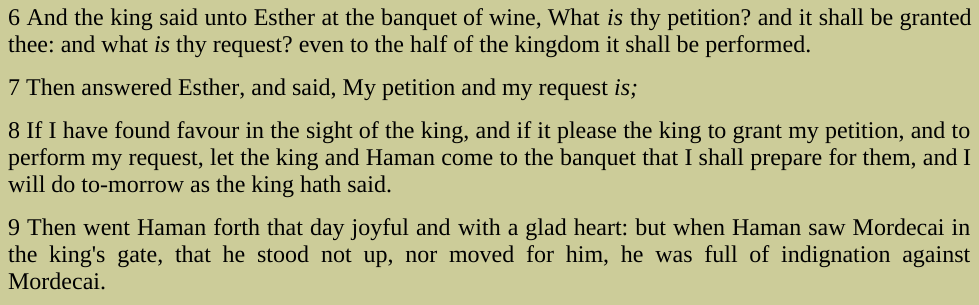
import math
import cairocffi as cairo

surface = cairo.ImageSurface(cairo.FORMAT_RGB24, 979, 305)
cr = cairo.Context(surface)
options = cairo.FontOptions()
options.set_hint_metrics(cairo.HINT_METRICS_OFF)
options.set_hint_style(cairo.HINT_STYLE_NONE)
cr.set_font_options(options)
cr.set_miter_limit(4)


def use_color(code):
    cr.set_source_rgb(*(v / 255 for v in bytes.fromhex(code[-6:])))


def spaced_text(x, y, s, letter, word):
    cr.move_to(x, y)
    for ch in s:
        cr.show_text(ch)
        cr.rel_move_to(letter + word * (ch == ' '), 0)


use_color("#cccc99")
cr.paint()
cr.select_font_face("Liberation Serif")
cr.set_font_size(24)
use_color("#000000")
spaced_text(8, 25, "6 And the king said unto Esther at the banquet", 0, 0.5)
cr.move_to(463, 25)
cr.show_text("of wine, What")
cr.select_font_face("Liberation Serif", cairo.FONT_SLANT_ITALIC)
cr.move_to(607, 25)
cr.show_text("is")
cr.select_font_face("Liberation Serif")
spaced_text(630, 25, "thy petition? and it shall be granted", 0, 0.5)
cr.move_to(8, 52)
cr.show_text("thee: and what")
cr.select_font_face("Liberation Serif", cairo.FONT_SLANT_ITALIC)
cr.move_to(154, 52)
cr.show_text("is")
cr.select_font_face("Liberation Serif")
cr.move_to(176, 52)
cr.show_text("thy request? even to the half of the kingdom it shall be performed.")
cr.move_to(8, 95)
cr.show_text("7 Then answered Esther, and said, My petition and my request")
cr.select_font_face("Liberation Serif", cairo.FONT_SLANT_ITALIC)
cr.move_to(614, 95)
cr.show_text("is;")
cr.select_font_face("Liberation Serif")
spaced_text(8, 138, "8 If I have found favour in the sight of the king, and if it please the king to grant my petition, and to", 0, 0.25)
spaced_text(8, 165, "perform my request, let the king and Haman come to the banquet that I shall prepare for them, and", 0, 0.25)
cr.move_to(963, 165)
cr.show_text("I")
cr.move_to(8, 192)
cr.show_text("will do to-morrow as the king hath said.")
spaced_text(8, 235, "9 Then went Haman forth that day joyful and", 0, 1)
spaced_text(458, 235, "with a glad heart: but when Haman saw Mordecai in", 0, 1)
spaced_text(8, 262, "the king's gate, that he stood", 0, 5.75)
spaced_text(321, 262, "not up, nor moved for him, he was full of indignation against", 0, 5.75)
cr.move_to(8, 289)
cr.show_text("Mordecai.")
surface.write_to_png("result.png")
